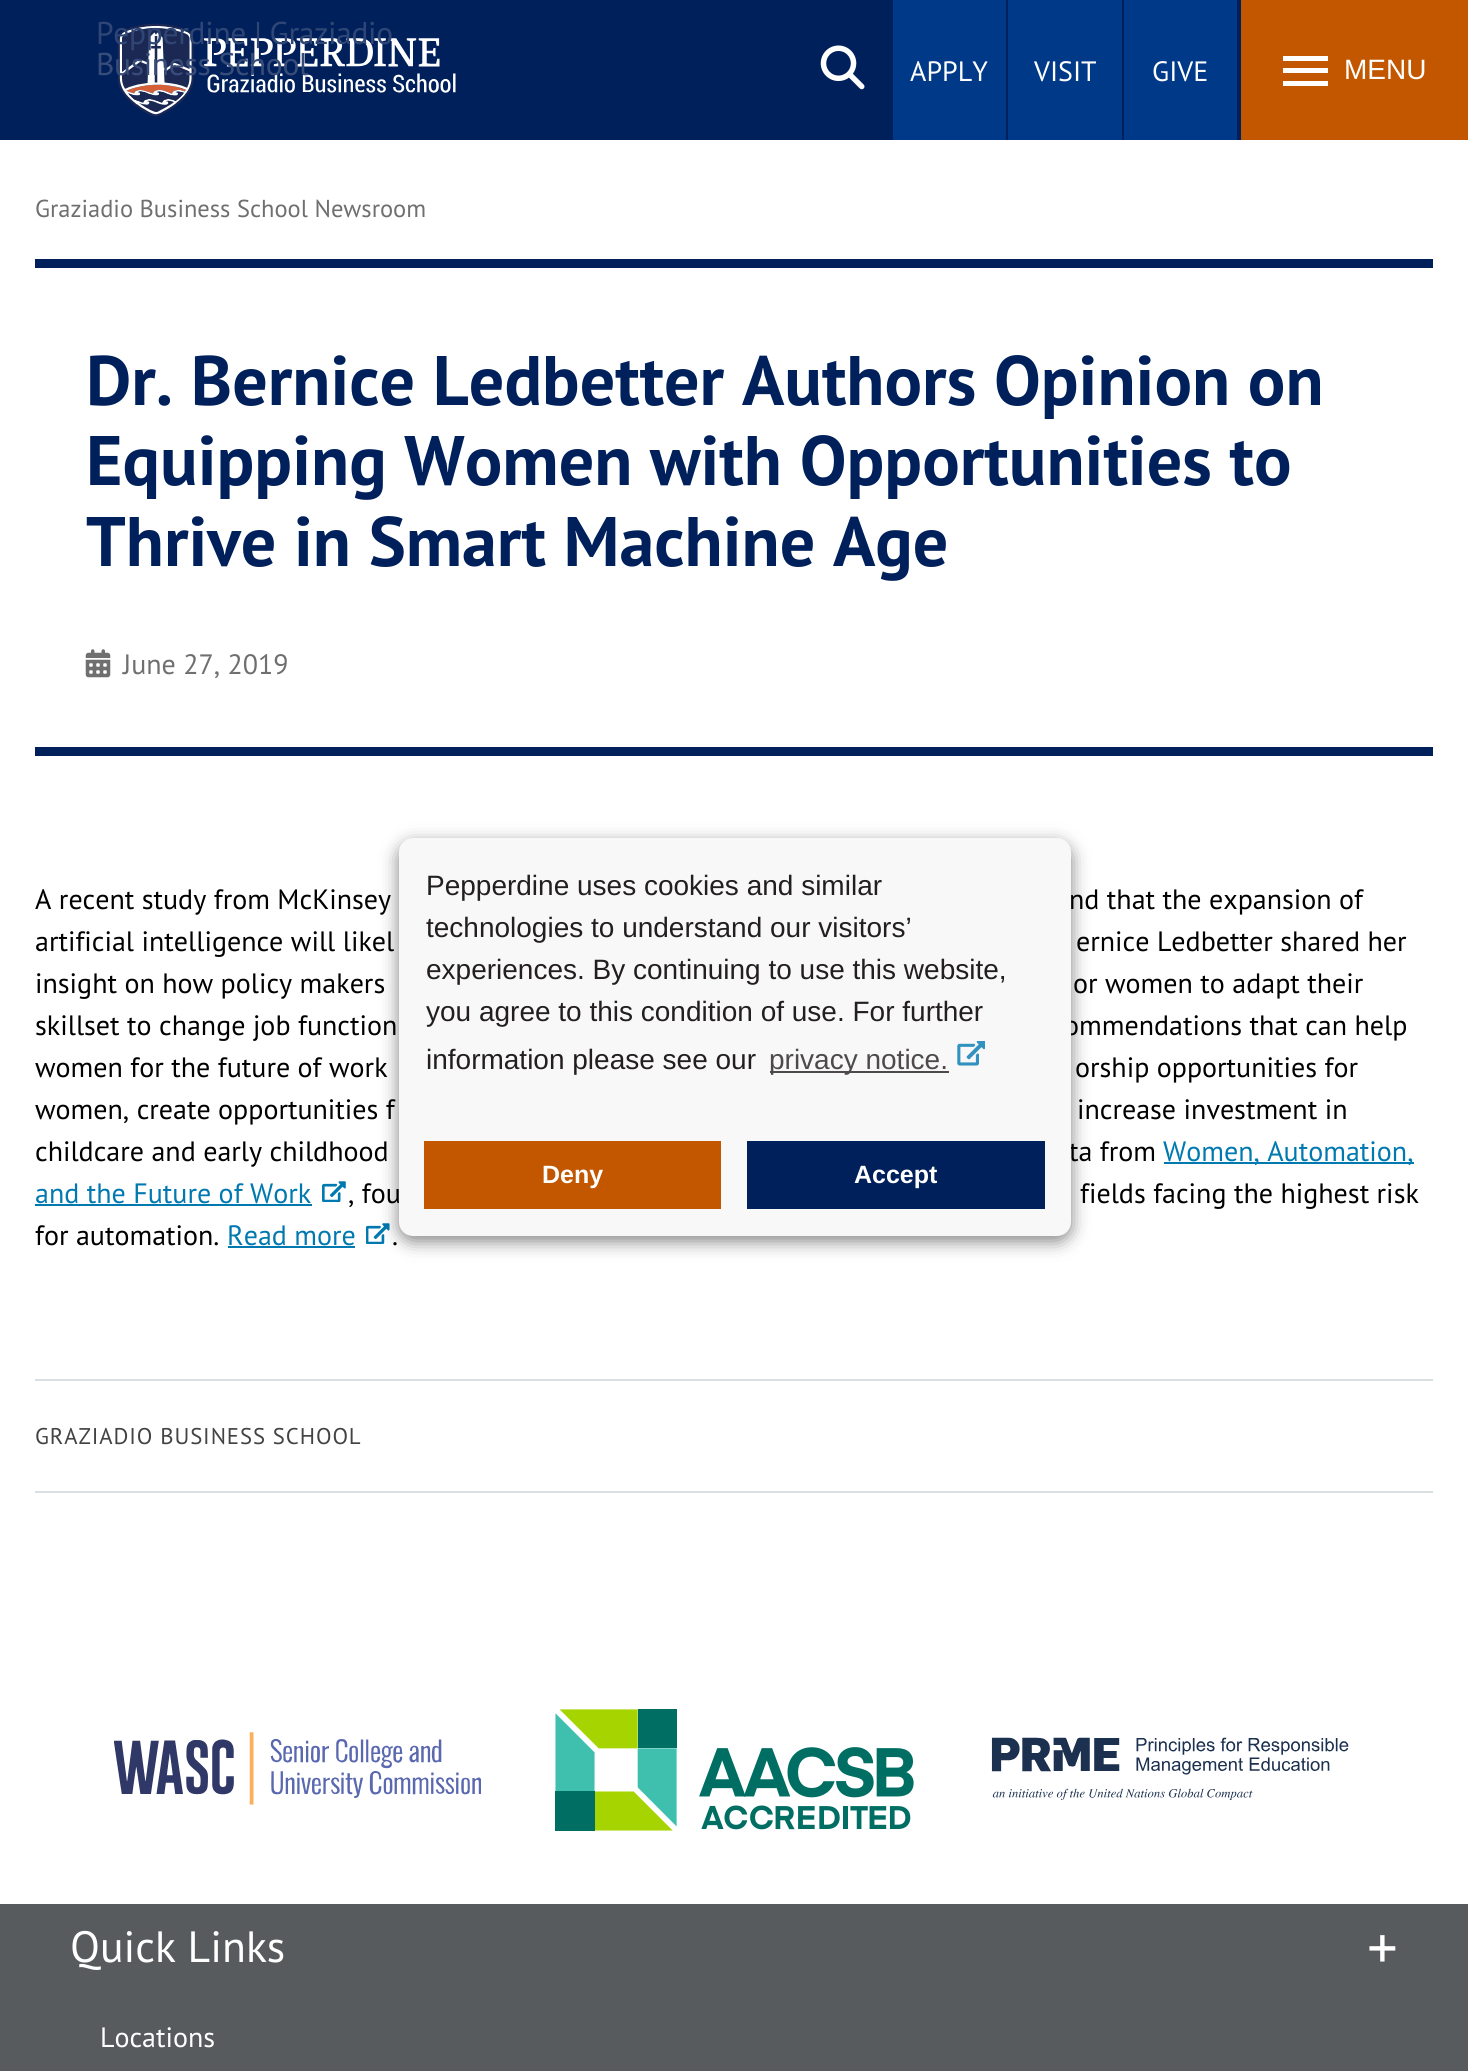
import math
import cairocffi as cairo

surface = cairo.ImageSurface(cairo.FORMAT_RGB24, 1468, 2071)
cr = cairo.Context(surface)
options = cairo.FontOptions()
options.set_hint_metrics(cairo.HINT_METRICS_OFF)
options.set_hint_style(cairo.HINT_STYLE_NONE)
cr.set_font_options(options)
cr.set_miter_limit(4)


def use_color(code):
    cr.set_source_rgb(*(v / 255 for v in bytes.fromhex(code[-6:])))


def spaced_text(x, y, s, letter, word):
    cr.move_to(x, y)
    for ch in s:
        cr.show_text(ch)
        cr.rel_move_to(letter + word * (ch == ' '), 0)


def round_rect(x, y, w, h, r):
    cr.new_sub_path()
    for i, (u, v) in enumerate([(x + w - r, y + h - r), (x + r, y + h - r), (x + r, y + r), (x + w - r, y + r)]):
        cr.arc(u, v, r, i * math.pi / 2, (i + 1) * math.pi / 2)
    cr.close_path()


def shadow(x, y, w, h, r, blur, alpha):
    cr.push_group_with_content(cairo.CONTENT_ALPHA)
    cr.set_operator(cairo.OPERATOR_SOURCE)
    for i in range(15, -16, -2):
        e = blur * i / 6
        if min(w, h) + 2 * e > 0:
            cr.set_source_rgba(0, 0, 0, alpha * math.erfc((i - 1) / 8.5) / 2)
            round_rect(x - e, y - e, w + 2 * e, h + 2 * e, max(0, min(r + e + blur * .6, min(w, h) / 2 + e)))
            cr.fill()
    cr.mask(cr.pop_group())


def picture(path, x, y, w, h):
    cr.save()
    cr.set_source_surface(cairo.ImageSurface.create_from_png(path), x, y)
    cr.rectangle(x, y, w, h)
    cr.fill()
    cr.restore()


use_color("#ffffff")
cr.paint()
use_color("#00205c")
cr.rectangle(0, 0, 1241, 140)
cr.fill()
picture("img1.png", 117, 23, 339, 94)
cr.select_font_face("PT Sans")
cr.set_font_size(31.5)
use_color("#2f4675")
spaced_text(96, 44, "Pepperdine | Graziadio", -0.3, 0)
use_color("#384c79")
spaced_text(96, 75, "Business School", -0.3, 0)
picture("img2.png", 820, 45, 45, 45)
use_color("#003988")
cr.rectangle(893, 0, 113, 140)
cr.fill()
cr.set_font_size(28)
use_color("#ffffff")
cr.move_to(910, 81)
cr.show_text("APPLY")
use_color("#003988")
cr.rectangle(1008, 0, 114, 140)
cr.fill()
use_color("#ffffff")
cr.move_to(1034, 81)
cr.show_text("VISIT")
use_color("#003988")
cr.rectangle(1124, 0, 113, 140)
cr.fill()
use_color("#ffffff")
cr.move_to(1152, 81)
cr.show_text("GIVE")
use_color("#c25700")
cr.rectangle(1241, 0, 227, 140)
cr.fill()
use_color("#ffffff")
cr.rectangle(1283, 56, 45, 5)
cr.fill()
cr.rectangle(1283, 68, 45, 5)
cr.fill()
cr.rectangle(1283, 81, 45, 5)
cr.fill()
cr.select_font_face("Liberation Sans")
cr.move_to(1344, 79)
cr.show_text("MENU")
cr.select_font_face("PT Sans")
cr.set_font_size(24.5)
use_color("#6f6f6f")
cr.move_to(35, 217)
cr.show_text("Graziadio Business School Newsroom")
use_color("#00205c")
cr.rectangle(35, 259, 1398, 9)
cr.fill()
cr.rectangle(35, 747, 1398, 9)
cr.fill()
cr.select_font_face("PT Sans", cairo.FONT_SLANT_NORMAL, cairo.FONT_WEIGHT_BOLD)
cr.set_font_size(70)
cr.move_to(86, 405)
cr.show_text("Dr. Bernice Ledbetter Authors Opinion on")
cr.move_to(86, 485)
cr.show_text("Equipping Women with Opportunities to")
cr.move_to(86, 566)
cr.show_text("Thrive in Smart Machine Age")
picture("img3.png", 85, 649, 26, 29)
cr.select_font_face("PT Sans")
cr.set_font_size(28)
use_color("#6f6f6f")
cr.move_to(123, 674)
cr.show_text("June 27, 2019")
use_color("#000000")
cr.move_to(35, 909)
cr.show_text("A recent study from McKinsey")
cr.move_to(1069, 909)
cr.show_text("nd that the expansion of")
cr.move_to(35, 951)
cr.show_text("artificial intelligence will likel")
cr.move_to(1076, 951)
cr.show_text("ernice Ledbetter shared her")
cr.move_to(35, 993)
cr.show_text("insight on how policy makers")
cr.move_to(1073, 993)
cr.show_text("or women to adapt their")
cr.move_to(35, 1035)
cr.show_text("skillset to change job function")
cr.move_to(1064, 1035)
cr.show_text("ommendations that can help")
cr.move_to(35, 1077)
cr.show_text("women for the future of work")
cr.move_to(1075, 1077)
cr.show_text("orship opportunities for")
cr.move_to(35, 1119)
cr.show_text("women, create opportunities f")
cr.move_to(1077, 1119)
cr.show_text("increase investment in")
cr.move_to(35, 1161)
cr.show_text("childcare and early childhood")
use_color("#0078b0")
cr.rectangle(1164, 1162, 250, 2)
cr.fill()
cr.move_to(1163, 1161)
cr.show_text("Women, Automation,")
cr.move_to(35, 1203)
cr.show_text("and the Future of Work")
cr.rectangle(35, 1204, 277, 2)
cr.fill()
picture("img4.png", 322, 1181, 24, 21)
use_color("#000000")
cr.move_to(1069, 1161)
cr.show_text("ta from")
cr.move_to(348, 1203)
cr.show_text(", fou")
cr.move_to(1080, 1203)
cr.show_text("fields facing the highest risk")
cr.move_to(35, 1245)
cr.show_text("for automation.")
use_color("#0078b0")
cr.move_to(227, 1245)
cr.show_text("Read more")
cr.rectangle(228, 1246, 127, 2)
cr.fill()
picture("img5.png", 366, 1223, 24, 21)
use_color("#000000")
cr.move_to(392, 1245)
cr.show_text(".")
use_color("#dadfe1")
cr.rectangle(35, 1379, 1398, 2)
cr.fill()
cr.rectangle(35, 1491, 1398, 2)
cr.fill()
cr.set_font_size(22.75)
use_color("#434244")
spaced_text(35, 1444, "GRAZIADIO BUSINESS SCHOOL", 0.9, 0)
use_color("#000000")
shadow(399, 844, 672, 397, 14, 9, 0.5)
use_color("#f8f8f8")
round_rect(399, 838, 672, 398, 14)
cr.fill()
cr.select_font_face("Liberation Sans")
cr.set_font_size(28)
use_color("#231f20")
cr.move_to(426, 895)
cr.show_text("Pepperdine uses cookies and similar")
cr.move_to(426, 937)
cr.show_text("technologies to understand our visitors’")
cr.move_to(426, 979)
cr.show_text("experiences. By continuing to use this website,")
cr.move_to(426, 1021)
cr.show_text("you agree to this condition of use. For further")
cr.move_to(426, 1069)
cr.show_text("information please see our")
use_color("#4e4a4b")
cr.rectangle(770, 1071, 179, 2)
cr.fill()
cr.move_to(769, 1069)
cr.show_text("privacy notice.")
picture("img6.png", 957, 1041, 28, 25)
use_color("#c25700")
cr.rectangle(424, 1141, 297, 68)
cr.fill()
cr.select_font_face("Liberation Sans", cairo.FONT_SLANT_NORMAL, cairo.FONT_WEIGHT_BOLD)
cr.set_font_size(25)
use_color("#ffffff")
cr.move_to(542, 1183)
cr.show_text("Deny")
use_color("#00205c")
cr.rectangle(747, 1141, 298, 68)
cr.fill()
use_color("#ffffff")
cr.move_to(854, 1183)
cr.show_text("Accept")
use_color("#575b5d")
cr.rectangle(0, 1904, 1468, 167)
cr.fill()
picture("img7.png", 114, 1732, 367, 73)
picture("img8.png", 555, 1709, 359, 122)
picture("img9.png", 991, 1737, 358, 63)
cr.select_font_face("PT Sans")
cr.set_font_size(43.75)
use_color("#ffffff")
cr.move_to(70, 1962)
cr.show_text("Quick Links")
cr.set_font_size(61)
cr.move_to(1367, 1969)
cr.show_text("+")
cr.set_font_size(28)
cr.move_to(100, 2047)
cr.show_text("Locations")
surface.write_to_png("result.png")
